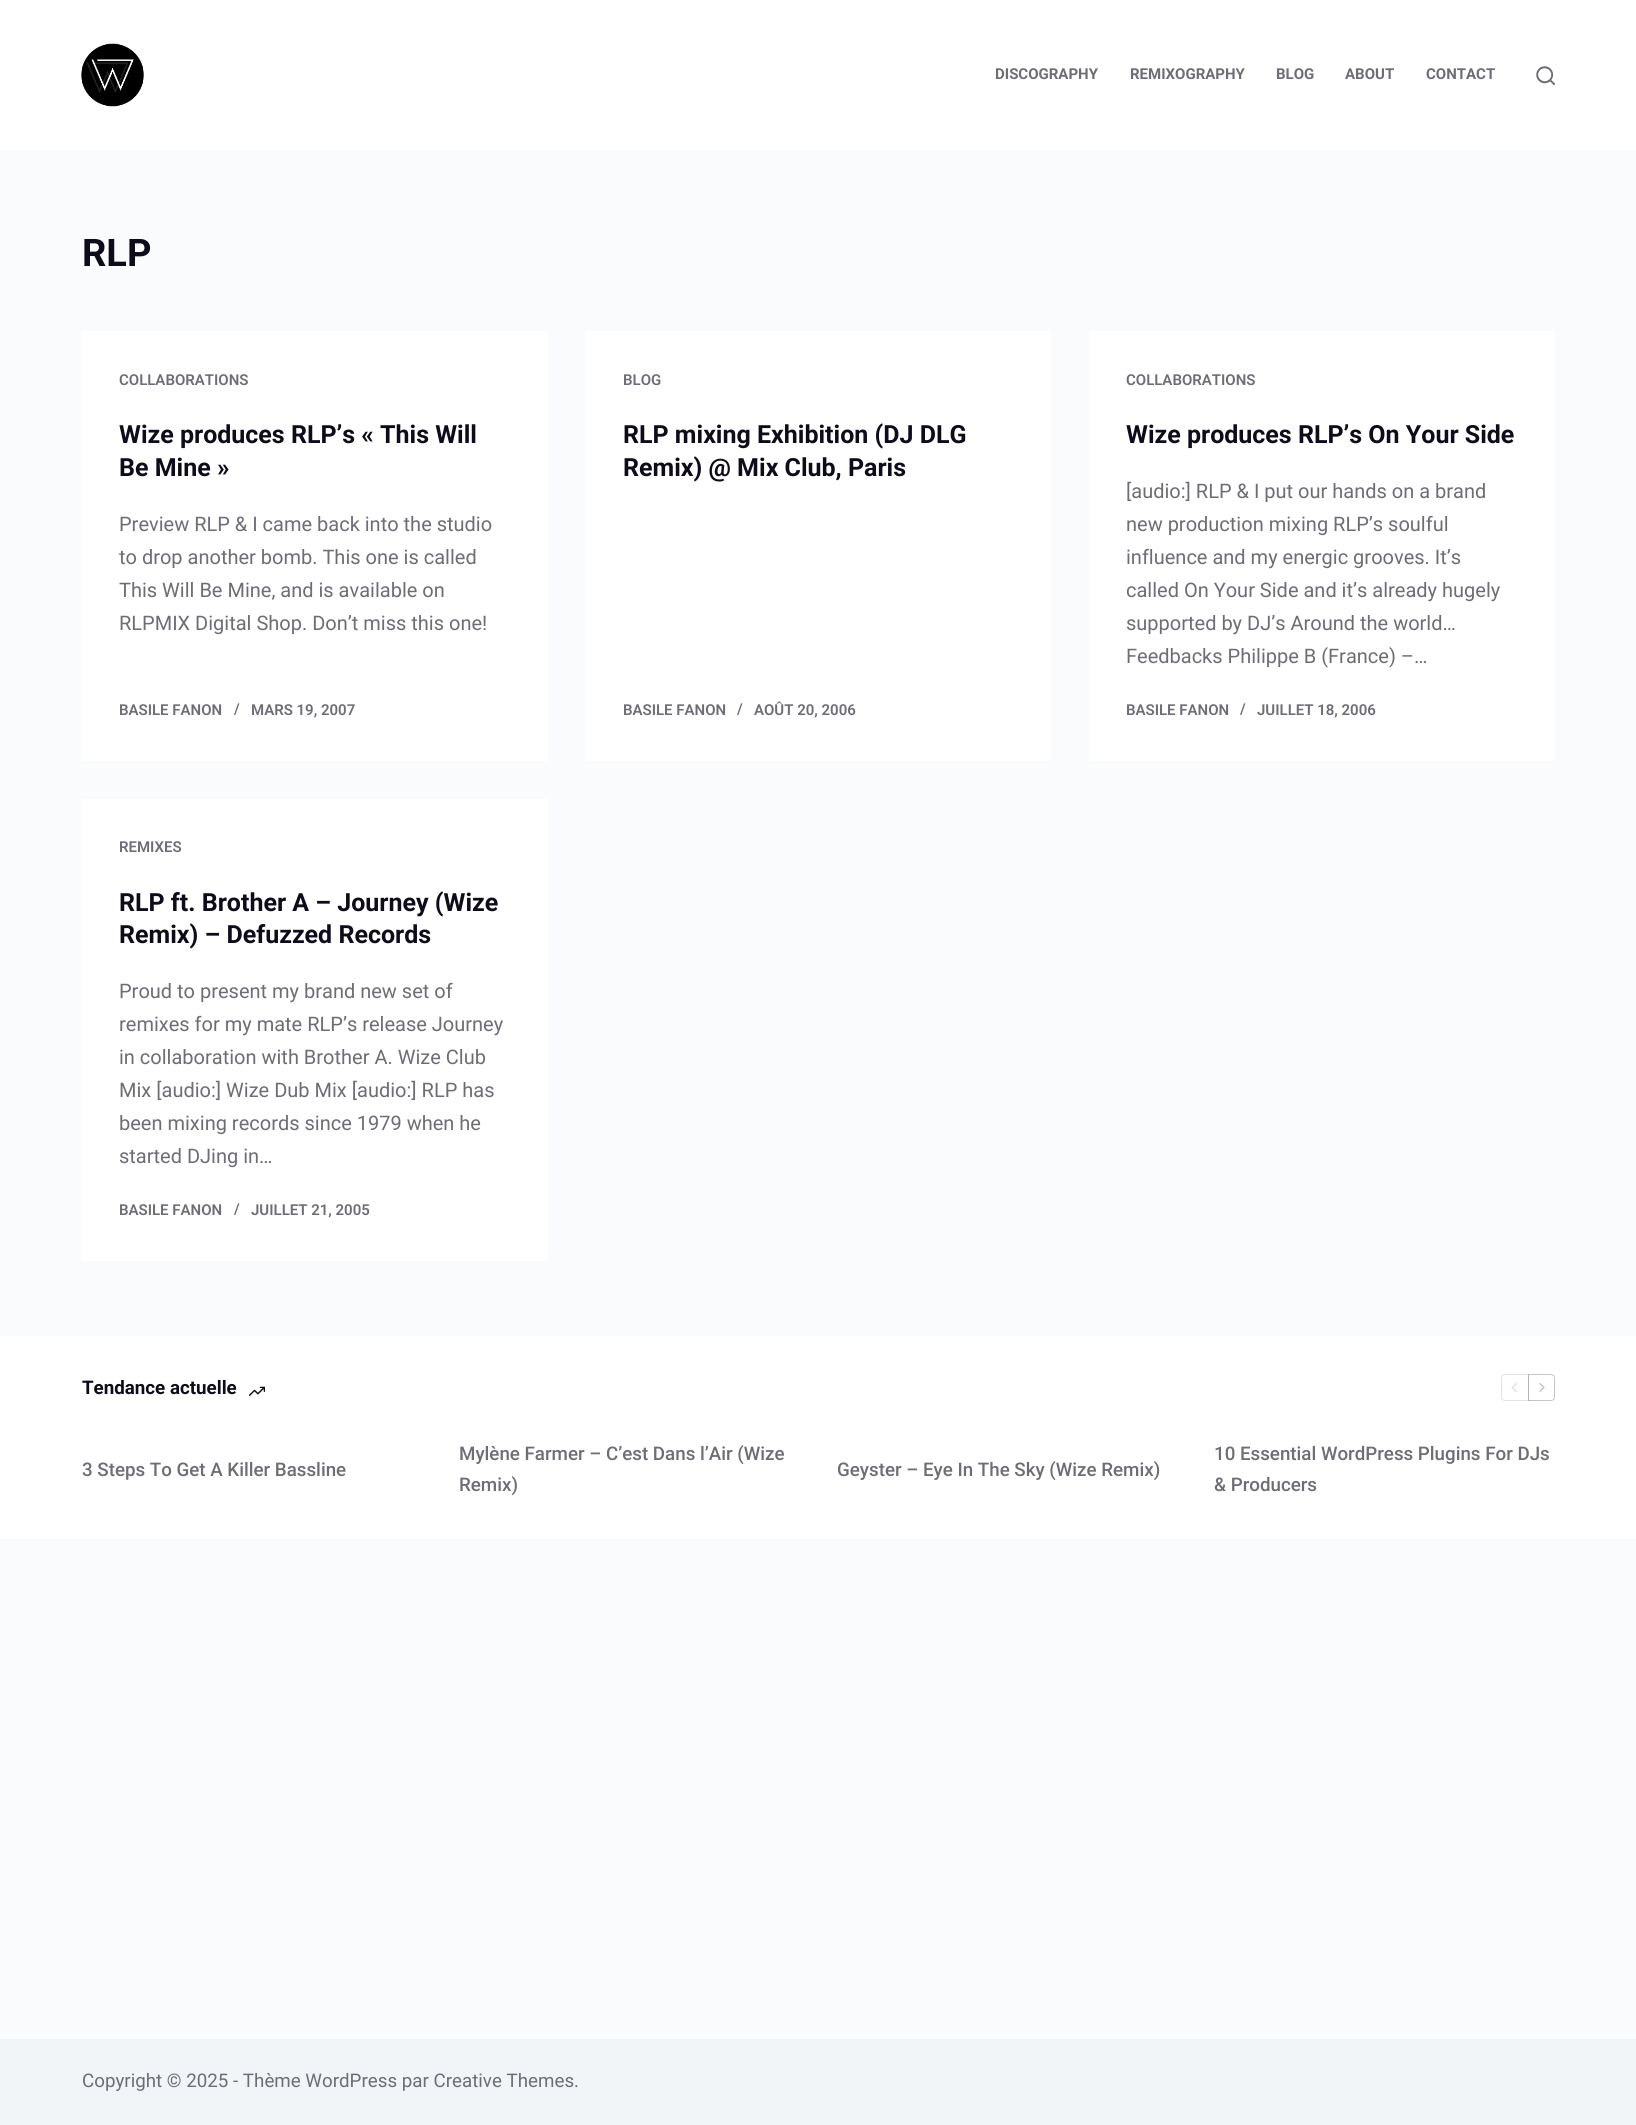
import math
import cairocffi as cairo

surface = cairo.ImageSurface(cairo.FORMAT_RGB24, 1636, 2125)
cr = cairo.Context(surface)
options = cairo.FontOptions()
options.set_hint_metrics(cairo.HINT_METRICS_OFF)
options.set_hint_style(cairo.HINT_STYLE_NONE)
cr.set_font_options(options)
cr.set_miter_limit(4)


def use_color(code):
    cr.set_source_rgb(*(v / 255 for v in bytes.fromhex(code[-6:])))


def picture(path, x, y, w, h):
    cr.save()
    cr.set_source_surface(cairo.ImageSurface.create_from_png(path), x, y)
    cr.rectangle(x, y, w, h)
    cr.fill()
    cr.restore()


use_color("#fafbfc")
cr.paint()
use_color("#ffffff")
cr.rectangle(0, 0, 1636, 150)
cr.fill()
picture("img1.png", 81, 43, 63, 64)
cr.select_font_face("Roboto", cairo.FONT_SLANT_NORMAL, cairo.FONT_WEIGHT_BOLD)
cr.set_font_size(15)
use_color("#6e6d76")
cr.move_to(995, 79)
cr.show_text("DISCOGRAPHY")
cr.move_to(1130, 79)
cr.show_text("REMIXOGRAPHY")
cr.move_to(1276, 79)
cr.show_text("BLOG")
cr.move_to(1345, 79)
cr.show_text("ABOUT")
cr.move_to(1426, 79)
cr.show_text("CONTACT")
picture("img2.png", 1536, 66, 19, 19)
cr.set_font_size(38)
use_color("#0e0c1b")
cr.move_to(82, 266)
cr.show_text("RLP")
use_color("#ffffff")
cr.rectangle(81, 331, 467, 430)
cr.fill()
cr.select_font_face("Roboto SemiBold")
cr.set_font_size(15)
use_color("#6e6d76")
cr.move_to(119, 385)
cr.show_text("COLLABORATIONS")
cr.select_font_face("Roboto", cairo.FONT_SLANT_NORMAL, cairo.FONT_WEIGHT_BOLD)
cr.set_font_size(25)
use_color("#0e0c1b")
cr.move_to(119, 443)
cr.show_text("Wize produces RLP’s « This Will")
cr.move_to(119, 476)
cr.show_text("Be Mine »")
cr.select_font_face("Roboto")
cr.set_font_size(20)
use_color("#6e6d76")
cr.move_to(119, 531)
cr.show_text("Preview RLP & I came back into the studio")
cr.move_to(119, 564)
cr.show_text("to drop another bomb. This one is called")
cr.move_to(119, 597)
cr.show_text("This Will Be Mine, and is available on")
cr.move_to(119, 630)
cr.show_text("RLPMIX Digital Shop. Don’t miss this one!")
cr.select_font_face("Roboto SemiBold")
cr.set_font_size(15)
cr.move_to(119, 715)
cr.show_text("BASILE FANON")
cr.move_to(234, 714)
cr.show_text("/")
cr.move_to(251, 715)
cr.show_text("MARS 19, 2007")
use_color("#ffffff")
cr.rectangle(585, 331, 466, 430)
cr.fill()
use_color("#6e6d76")
cr.move_to(623, 385)
cr.show_text("BLOG")
cr.select_font_face("Roboto", cairo.FONT_SLANT_NORMAL, cairo.FONT_WEIGHT_BOLD)
cr.set_font_size(25)
use_color("#0e0c1b")
cr.move_to(623, 443)
cr.show_text("RLP mixing Exhibition (DJ DLG")
cr.move_to(623, 476)
cr.show_text("Remix) @ Mix Club, Paris")
cr.select_font_face("Roboto SemiBold")
cr.set_font_size(15)
use_color("#6e6d76")
cr.move_to(623, 715)
cr.show_text("BASILE FANON")
cr.move_to(737, 714)
cr.show_text("/")
cr.move_to(754, 715)
cr.show_text("AOÛT 20, 2006")
use_color("#ffffff")
cr.rectangle(1089, 331, 466, 430)
cr.fill()
use_color("#6e6d76")
cr.move_to(1126, 385)
cr.show_text("COLLABORATIONS")
cr.select_font_face("Roboto", cairo.FONT_SLANT_NORMAL, cairo.FONT_WEIGHT_BOLD)
cr.set_font_size(25)
use_color("#0e0c1b")
cr.move_to(1126, 443)
cr.show_text("Wize produces RLP’s On Your Side")
cr.select_font_face("Roboto")
cr.set_font_size(20)
use_color("#6e6d76")
cr.move_to(1126, 498)
cr.show_text("[audio:] RLP & I put our hands on a brand")
cr.move_to(1126, 531)
cr.show_text("new production mixing RLP’s soulful")
cr.move_to(1126, 564)
cr.show_text("influence and my energic grooves. It’s")
cr.move_to(1126, 597)
cr.show_text("called On Your Side and it’s already hugely")
cr.move_to(1126, 630)
cr.show_text("supported by DJ’s Around the world…")
cr.move_to(1126, 663)
cr.show_text("Feedbacks Philippe B (France) –…")
cr.select_font_face("Roboto SemiBold")
cr.set_font_size(15)
cr.move_to(1126, 715)
cr.show_text("BASILE FANON")
cr.move_to(1240, 714)
cr.show_text("/")
cr.move_to(1257, 715)
cr.show_text("JUILLET 18, 2006")
use_color("#ffffff")
cr.rectangle(81, 799, 467, 462)
cr.fill()
use_color("#6e6d76")
cr.move_to(119, 852)
cr.show_text("REMIXES")
cr.select_font_face("Roboto", cairo.FONT_SLANT_NORMAL, cairo.FONT_WEIGHT_BOLD)
cr.set_font_size(25)
use_color("#0e0c1b")
cr.move_to(119, 911)
cr.show_text("RLP ft. Brother A – Journey (Wize")
cr.move_to(119, 943)
cr.show_text("Remix) – Defuzzed Records")
cr.select_font_face("Roboto")
cr.set_font_size(20)
use_color("#6e6d76")
cr.move_to(119, 998)
cr.show_text("Proud to present my brand new set of")
cr.move_to(119, 1031)
cr.show_text("remixes for my mate RLP’s release Journey")
cr.move_to(119, 1064)
cr.show_text("in collaboration with Brother A. Wize Club")
cr.move_to(119, 1097)
cr.show_text("Mix [audio:] Wize Dub Mix [audio:] RLP has")
cr.move_to(119, 1130)
cr.show_text("been mixing records since 1979 when he")
cr.move_to(119, 1163)
cr.show_text("started DJing in…")
cr.select_font_face("Roboto SemiBold")
cr.set_font_size(15)
cr.move_to(119, 1215)
cr.show_text("BASILE FANON")
cr.move_to(234, 1214)
cr.show_text("/")
cr.move_to(251, 1215)
cr.show_text("JUILLET 21, 2005")
use_color("#ffffff")
cr.rectangle(0, 1336, 1636, 203)
cr.fill()
cr.select_font_face("Roboto", cairo.FONT_SLANT_NORMAL, cairo.FONT_WEIGHT_BOLD)
cr.set_font_size(18.75)
use_color("#0e0c1b")
cr.move_to(82, 1394)
cr.show_text("Tendance actuelle")
picture("img3.png", 249, 1386, 16, 10)
cr.new_path()
cr.move_to(1505, 1374.5)
cr.line_to(1528.5, 1374.5)
cr.line_to(1528.5, 1400.5)
cr.line_to(1505, 1400.5)
cr.curve_to(1503, 1400.5, 1501.5, 1399, 1501.5, 1397)
cr.line_to(1501.5, 1378)
cr.curve_to(1501.5, 1376, 1503, 1374.5, 1505, 1374.5)
cr.close_path()
use_color("#e2e2e4")
cr.set_line_width(1)
cr.stroke()
picture("img4.png", 1511, 1383, 6, 10)
cr.new_path()
cr.move_to(1528.5, 1374.5)
cr.line_to(1551, 1374.5)
cr.curve_to(1553, 1374.5, 1554.5, 1376, 1554.5, 1378)
cr.line_to(1554.5, 1397)
cr.curve_to(1554.5, 1399, 1553, 1400.5, 1551, 1400.5)
cr.line_to(1528.5, 1400.5)
cr.close_path()
cr.set_source_rgba(0.431, 0.427, 0.463, 0.4)
cr.stroke()
picture("img5.png", 1539, 1383, 6, 10)
cr.select_font_face("Roboto Medium")
use_color("#6e6d76")
cr.move_to(82, 1476)
cr.show_text("3 Steps To Get A Killer Bassline")
cr.move_to(459, 1460)
cr.show_text("Mylène Farmer – C’est Dans l’Air (Wize")
cr.move_to(459, 1491)
cr.show_text("Remix)")
cr.move_to(837, 1476)
cr.show_text("Geyster – Eye In The Sky (Wize Remix)")
cr.move_to(1214, 1460)
cr.show_text("10 Essential WordPress Plugins For DJs")
cr.move_to(1214, 1491)
cr.show_text("& Producers")
use_color("#f2f5f7")
cr.rectangle(0, 2039, 1636, 86)
cr.fill()
cr.select_font_face("Roboto")
use_color("#6e6d76")
cr.move_to(82, 2087)
cr.show_text("Copyright © 2025 - Thème WordPress par Creative Themes.")
surface.write_to_png("result.png")
